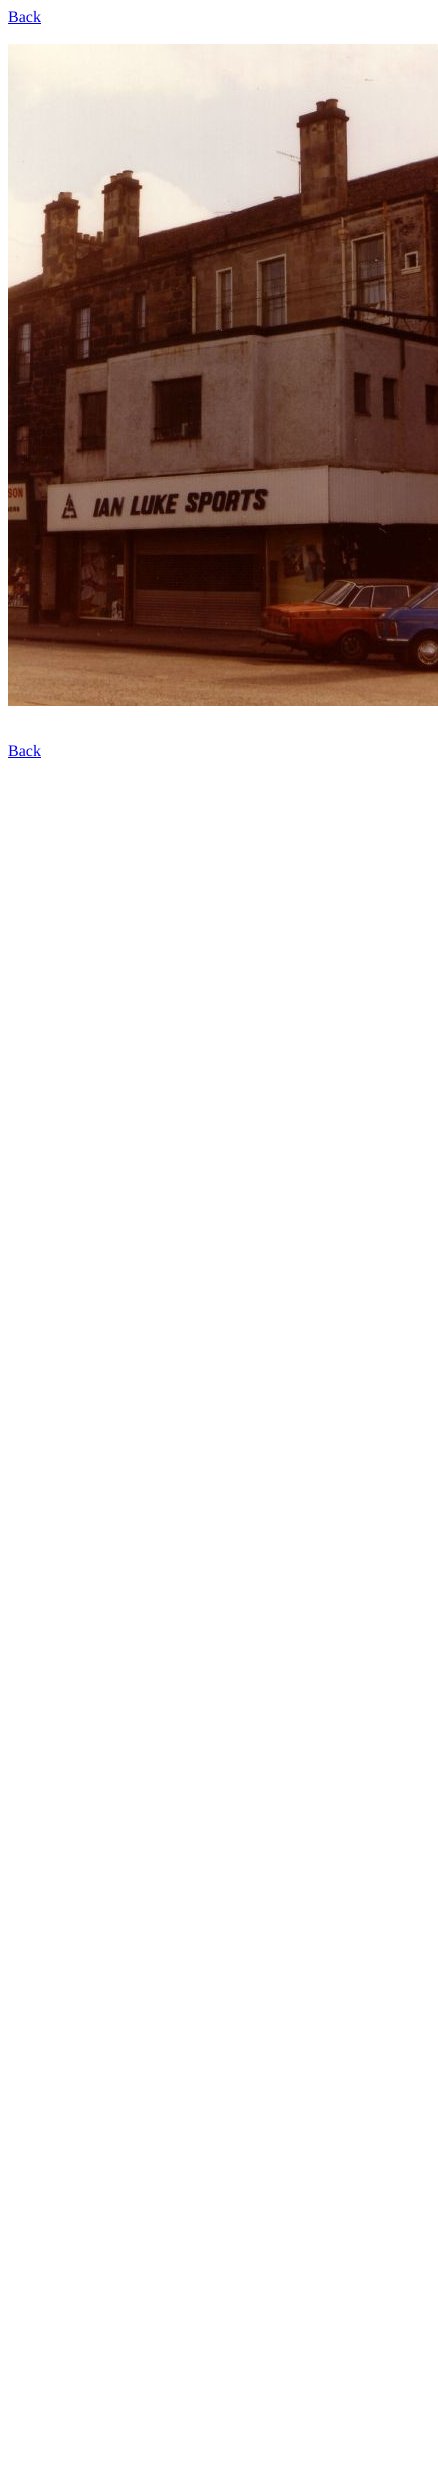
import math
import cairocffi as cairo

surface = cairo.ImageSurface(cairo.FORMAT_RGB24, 438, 2491)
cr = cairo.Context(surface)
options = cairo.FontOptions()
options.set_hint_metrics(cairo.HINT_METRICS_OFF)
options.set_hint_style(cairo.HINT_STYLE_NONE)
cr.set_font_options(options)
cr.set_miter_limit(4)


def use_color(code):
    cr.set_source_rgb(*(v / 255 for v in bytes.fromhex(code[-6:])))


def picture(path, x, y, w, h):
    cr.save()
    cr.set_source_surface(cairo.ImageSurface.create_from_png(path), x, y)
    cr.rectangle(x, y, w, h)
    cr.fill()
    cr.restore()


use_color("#ffffff")
cr.paint()
cr.select_font_face("Liberation Serif")
cr.set_font_size(16)
use_color("#0000ee")
cr.move_to(8, 22)
cr.show_text("Back")
cr.rectangle(8, 23, 33, 1)
cr.fill()
picture("img1.png", 8, 44, 430, 662)
cr.move_to(8, 756)
cr.show_text("Back")
cr.rectangle(8, 757, 33, 1)
cr.fill()
surface.write_to_png("result.png")
